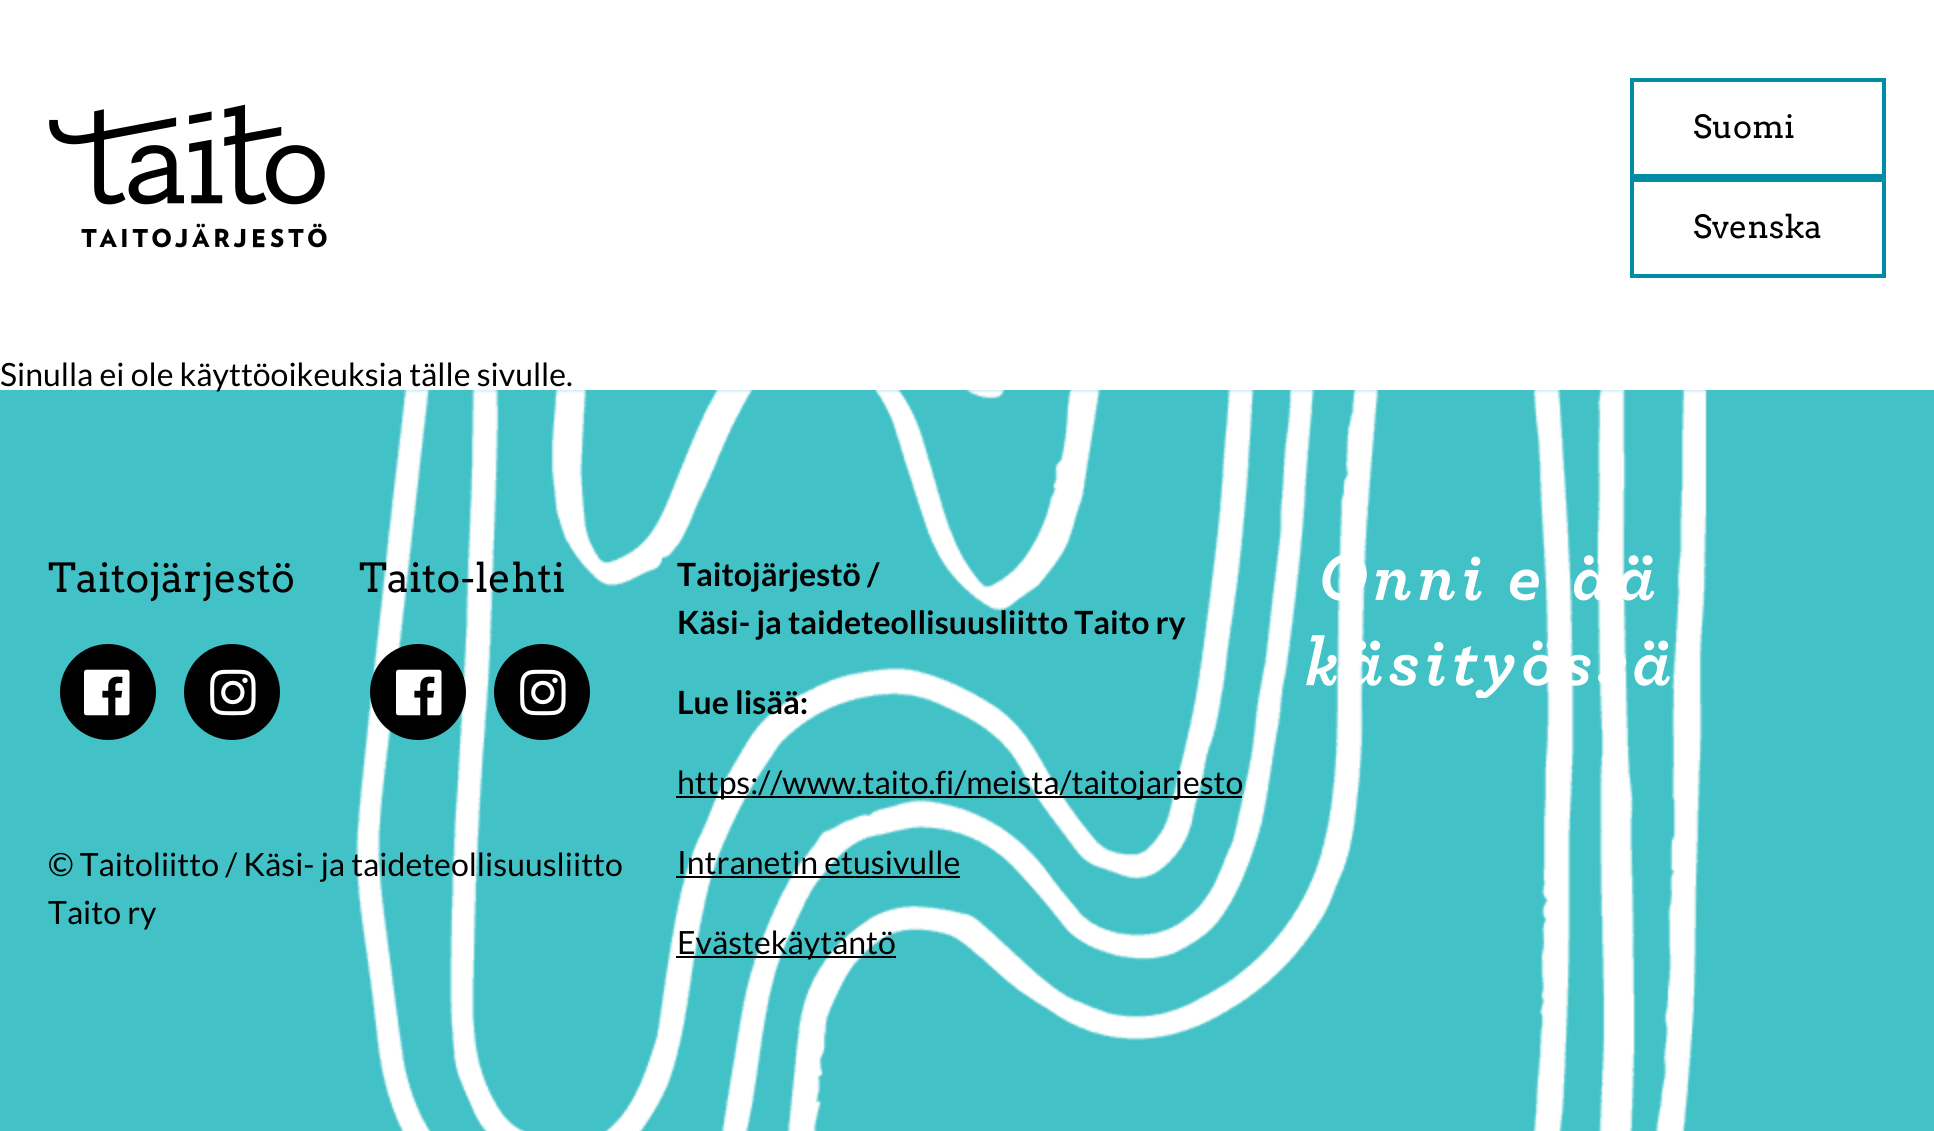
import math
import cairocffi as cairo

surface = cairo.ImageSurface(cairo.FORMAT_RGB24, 1934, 1131)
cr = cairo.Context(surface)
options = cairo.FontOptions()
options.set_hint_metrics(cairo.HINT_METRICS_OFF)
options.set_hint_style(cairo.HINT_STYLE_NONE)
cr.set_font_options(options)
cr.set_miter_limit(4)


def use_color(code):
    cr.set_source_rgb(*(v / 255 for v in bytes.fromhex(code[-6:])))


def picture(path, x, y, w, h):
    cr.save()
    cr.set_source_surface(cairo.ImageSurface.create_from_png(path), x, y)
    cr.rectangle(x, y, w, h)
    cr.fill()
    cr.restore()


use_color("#ffffff")
cr.paint()
picture("img1.png", 49, 104, 278, 144)
cr.rectangle(1632, 80, 252, 96)
use_color("#008ca5")
cr.set_line_width(4)
cr.stroke()
cr.select_font_face("Arvo")
cr.set_font_size(32)
use_color("#000000")
cr.move_to(1693, 138)
cr.show_text("Suomi")
cr.rectangle(1632, 180, 252, 96)
use_color("#008ca5")
cr.stroke()
use_color("#000000")
cr.move_to(1693, 238)
cr.show_text("Svenska")
picture("img2.png", 0, 390, 1934, 741)
cr.select_font_face("Lato")
cr.move_to(0, 386)
cr.show_text("Sinulla ei ole käyttöoikeuksia tälle sivulle.")
cr.select_font_face("Arvo")
cr.set_font_size(40)
cr.move_to(48, 592)
cr.show_text("Taitojärjestö")
cr.new_path()
cr.arc(108, 692, 48, 0, 2 * math.pi)
cr.fill()
picture("img3.png", 84, 669, 46, 47)
cr.arc(232, 692, 48, 0, 2 * math.pi)
cr.fill()
picture("img4.png", 210, 669, 46, 47)
cr.move_to(359, 592)
cr.show_text("Taito-lehti")
cr.new_path()
cr.arc(418, 692, 48, 0, 2 * math.pi)
cr.fill()
picture("img3.png", 396, 669, 46, 47)
cr.arc(542, 692, 48, 0, 2 * math.pi)
cr.fill()
picture("img4.png", 520, 669, 46, 47)
cr.select_font_face("Lato")
cr.set_font_size(32)
cr.move_to(48, 876)
cr.show_text("© Taitoliitto / Käsi- ja taideteollisuusliitto")
cr.move_to(48, 924)
cr.show_text("Taito ry")
cr.select_font_face("Lato", cairo.FONT_SLANT_NORMAL, cairo.FONT_WEIGHT_BOLD)
cr.move_to(677, 586)
cr.show_text("Taitojärjestö /")
cr.move_to(677, 634)
cr.show_text("Käsi- ja taideteollisuusliitto Taito ry")
cr.move_to(677, 714)
cr.show_text("Lue lisää:")
cr.rectangle(676, 796, 566, 2)
cr.fill()
cr.select_font_face("Lato")
cr.move_to(677, 794)
cr.show_text("https://www.taito.fi/meista/taitojarjesto")
cr.move_to(677, 874)
cr.show_text("Intranetin etusivulle")
cr.rectangle(676, 876, 284, 2)
cr.fill()
cr.rectangle(676, 956, 220, 2)
cr.fill()
cr.move_to(677, 954)
cr.show_text("Evästekäytäntö")
picture("img5.png", 1306, 555, 364, 143)
surface.write_to_png("result.png")
